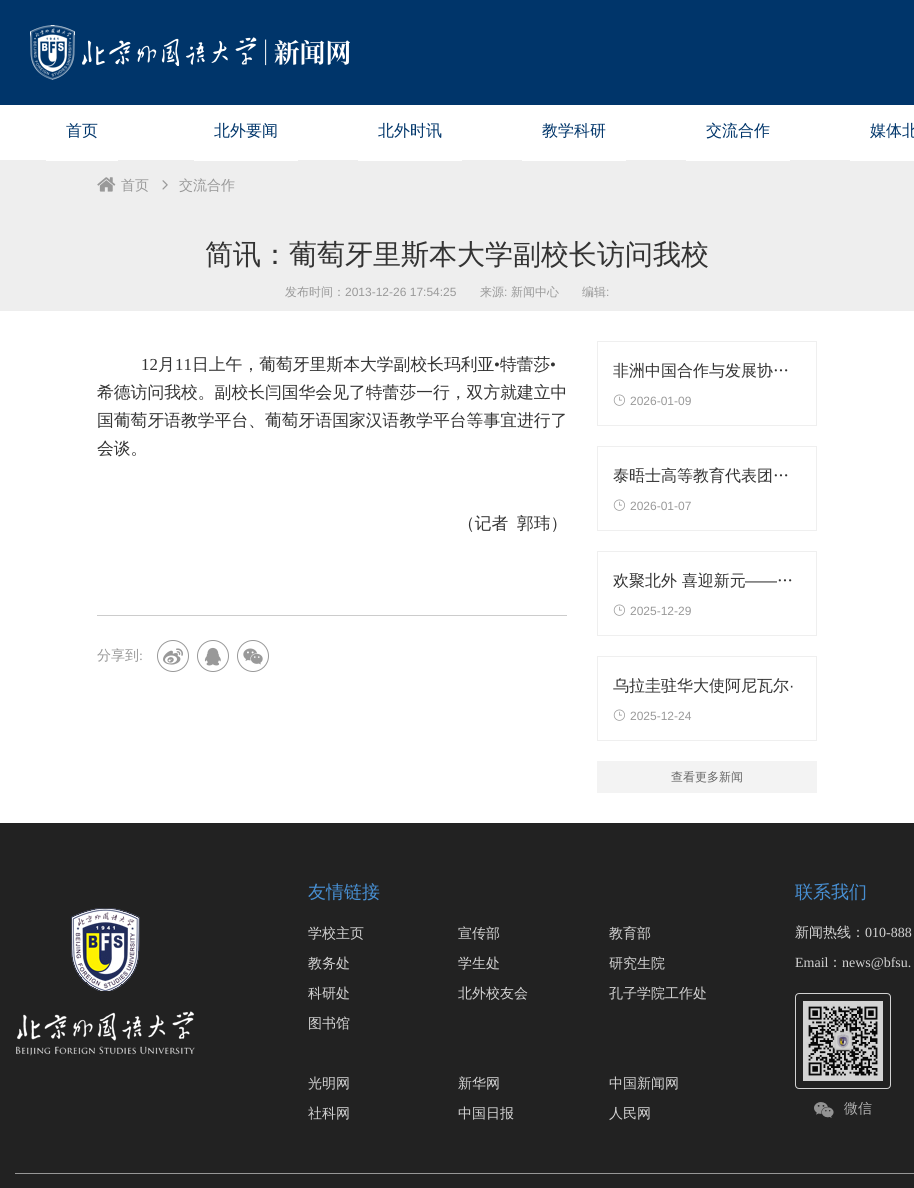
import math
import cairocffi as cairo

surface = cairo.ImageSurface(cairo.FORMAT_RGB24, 914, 1188)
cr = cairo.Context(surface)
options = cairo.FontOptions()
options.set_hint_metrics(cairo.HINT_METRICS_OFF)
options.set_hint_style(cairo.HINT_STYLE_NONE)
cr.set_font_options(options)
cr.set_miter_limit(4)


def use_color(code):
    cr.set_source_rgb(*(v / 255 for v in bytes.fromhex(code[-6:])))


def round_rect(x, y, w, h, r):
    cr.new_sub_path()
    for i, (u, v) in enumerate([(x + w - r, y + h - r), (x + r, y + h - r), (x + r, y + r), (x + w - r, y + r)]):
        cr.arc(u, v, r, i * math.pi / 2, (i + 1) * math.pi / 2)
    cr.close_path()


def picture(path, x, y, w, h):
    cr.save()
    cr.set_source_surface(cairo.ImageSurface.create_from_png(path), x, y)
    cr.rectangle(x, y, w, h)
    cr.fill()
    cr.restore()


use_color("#ffffff")
cr.paint()
use_color("#00356a")
cr.rectangle(0, 0, 914, 105)
cr.fill()
picture("img1.png", 30, 25, 320, 55)
use_color("#eeeeee")
cr.rectangle(0, 160, 914, 151)
cr.fill()
use_color("#ffffff")
cr.rectangle(46, 160, 72, 1)
cr.fill()
cr.select_font_face("WenQuanYi Zen Hei Medium")
cr.set_font_size(16)
use_color("#00356a")
cr.move_to(66, 136)
cr.show_text("首页")
use_color("#ffffff")
cr.rectangle(194, 160, 104, 1)
cr.fill()
use_color("#00356a")
cr.move_to(214, 136)
cr.show_text("北外要闻")
use_color("#ffffff")
cr.rectangle(358, 160, 104, 1)
cr.fill()
use_color("#00356a")
cr.move_to(378, 136)
cr.show_text("北外时讯")
use_color("#ffffff")
cr.rectangle(522, 160, 104, 1)
cr.fill()
use_color("#00356a")
cr.move_to(542, 136)
cr.show_text("教学科研")
use_color("#ffffff")
cr.rectangle(686, 160, 104, 1)
cr.fill()
use_color("#00356a")
cr.move_to(706, 136)
cr.show_text("交流合作")
use_color("#ffffff")
cr.rectangle(850, 160, 64, 1)
cr.fill()
use_color("#00356a")
cr.move_to(870, 136)
cr.show_text("媒体北")
picture("img2.png", 97, 177, 19, 15)
cr.set_font_size(14)
use_color("#999999")
cr.move_to(121, 190)
cr.show_text("首页")
picture("img3.png", 162, 180, 6, 10)
cr.move_to(179, 190)
cr.show_text("交流合作")
cr.set_font_size(28)
use_color("#333333")
cr.move_to(205, 264)
cr.show_text("简讯：葡萄牙里斯本大学副校长访问我校")
cr.set_font_size(12)
use_color("#999999")
cr.move_to(285, 296)
cr.show_text("发布时间：")
cr.select_font_face("Liberation Sans")
cr.move_to(345, 296)
cr.show_text("2013-12-26 17:54:25")
cr.select_font_face("WenQuanYi Zen Hei Medium")
cr.move_to(480, 296)
cr.show_text("来源")
cr.select_font_face("Liberation Sans")
cr.move_to(504, 296)
cr.show_text(":")
cr.select_font_face("WenQuanYi Zen Hei Medium")
cr.move_to(511, 296)
cr.show_text("新闻中心")
cr.move_to(582, 296)
cr.show_text("编辑")
cr.select_font_face("Liberation Sans")
cr.move_to(606, 296)
cr.show_text(":")
cr.select_font_face("Liberation Serif")
cr.set_font_size(16.8)
use_color("#333333")
cr.move_to(141, 370)
cr.show_text("12")
cr.select_font_face("WenQuanYi Zen Hei Medium")
cr.move_to(158, 370)
cr.show_text("月")
cr.select_font_face("Liberation Serif")
cr.move_to(175, 370)
cr.show_text("11")
cr.select_font_face("WenQuanYi Zen Hei Medium")
cr.move_to(192, 370)
cr.show_text("日上午，葡萄牙里斯本大学副校长玛利亚")
cr.select_font_face("Liberation Serif")
cr.move_to(494, 370)
cr.show_text("•")
cr.select_font_face("WenQuanYi Zen Hei Medium")
cr.move_to(500, 370)
cr.show_text("特蕾莎")
cr.select_font_face("Liberation Serif")
cr.move_to(550, 370)
cr.show_text("•")
cr.select_font_face("WenQuanYi Zen Hei Medium")
cr.move_to(97, 398)
cr.show_text("希德访问我校。副校长闫国华会见了特蕾莎一行，双方就建立中")
cr.move_to(97, 426)
cr.show_text("国葡萄牙语教学平台、葡萄牙语国家汉语教学平台等事宜进行了")
cr.move_to(97, 454)
cr.show_text("会谈。")
cr.move_to(458, 529)
cr.show_text("（记者")
cr.move_to(517, 529)
cr.show_text("郭玮）")
use_color("#cccccc")
cr.rectangle(97, 615, 470, 1)
cr.fill()
cr.set_font_size(14)
use_color("#999999")
cr.move_to(97, 660)
cr.show_text("分享到")
cr.select_font_face("Liberation Serif")
cr.move_to(139, 660)
cr.show_text(":")
cr.new_path()
cr.arc(173, 656, 15.5, 0, 2 * math.pi)
cr.set_line_width(1)
cr.stroke()
picture("img4.png", 163, 648, 20, 17)
cr.arc(213, 656, 15.5, 0, 2 * math.pi)
cr.stroke()
picture("img5.png", 204, 647, 17, 19)
cr.arc(253, 656, 15.5, 0, 2 * math.pi)
cr.stroke()
picture("img6.png", 243, 648, 20, 17)
cr.rectangle(597.5, 341.5, 219, 84)
use_color("#efefef")
cr.stroke()
cr.select_font_face("WenQuanYi Zen Hei Medium")
cr.set_font_size(16)
use_color("#333333")
cr.move_to(613, 376)
cr.show_text("非洲中国合作与发展协…")
picture("img7.png", 613, 394, 12, 12)
cr.select_font_face("Liberation Sans")
cr.set_font_size(12)
use_color("#999999")
cr.move_to(630, 405)
cr.show_text("2026-01-09")
cr.rectangle(597.5, 446.5, 219, 84)
use_color("#efefef")
cr.stroke()
cr.select_font_face("WenQuanYi Zen Hei Medium")
cr.set_font_size(16)
use_color("#333333")
cr.move_to(613, 481)
cr.show_text("泰晤士高等教育代表团…")
picture("img7.png", 613, 499, 12, 12)
cr.select_font_face("Liberation Sans")
cr.set_font_size(12)
use_color("#999999")
cr.move_to(630, 510)
cr.show_text("2026-01-07")
cr.rectangle(597.5, 551.5, 219, 84)
use_color("#efefef")
cr.stroke()
cr.select_font_face("WenQuanYi Zen Hei Medium")
cr.set_font_size(16)
use_color("#333333")
cr.move_to(613, 586)
cr.show_text("欢聚北外 喜迎新元")
cr.select_font_face("Liberation Sans")
cr.move_to(745, 586)
cr.show_text("——")
cr.select_font_face("WenQuanYi Zen Hei Medium")
cr.move_to(777, 586)
cr.show_text("…")
picture("img7.png", 613, 604, 12, 12)
cr.select_font_face("Liberation Sans")
cr.set_font_size(12)
use_color("#999999")
cr.move_to(630, 615)
cr.show_text("2025-12-29")
cr.rectangle(597.5, 656.5, 219, 84)
use_color("#efefef")
cr.stroke()
cr.select_font_face("WenQuanYi Zen Hei Medium")
cr.set_font_size(16)
use_color("#333333")
cr.move_to(613, 691)
cr.show_text("乌拉圭驻华大使阿尼瓦尔")
cr.select_font_face("Liberation Sans")
cr.move_to(789, 691)
cr.show_text("·")
picture("img7.png", 613, 709, 12, 12)
cr.set_font_size(12)
use_color("#999999")
cr.move_to(630, 720)
cr.show_text("2025-12-24")
use_color("#f3f3f3")
cr.rectangle(597, 761, 220, 32)
cr.fill()
cr.select_font_face("WenQuanYi Zen Hei Medium")
use_color("#666666")
cr.move_to(671, 781)
cr.show_text("查看更多新闻")
use_color("#222222")
cr.rectangle(0, 823, 914, 365)
cr.fill()
picture("img8.png", 16, 908, 179, 148)
cr.set_font_size(18)
use_color("#478fd3")
cr.move_to(308, 898)
cr.show_text("友情链接")
cr.set_font_size(14)
use_color("#d3d3d3")
cr.move_to(308, 938)
cr.show_text("学校主页")
cr.move_to(458, 938)
cr.show_text("宣传部")
cr.move_to(609, 938)
cr.show_text("教育部")
cr.move_to(308, 968)
cr.show_text("教务处")
cr.move_to(458, 968)
cr.show_text("学生处")
cr.move_to(609, 968)
cr.show_text("研究生院")
cr.move_to(308, 998)
cr.show_text("科研处")
cr.move_to(458, 998)
cr.show_text("北外校友会")
cr.move_to(609, 998)
cr.show_text("孔子学院工作处")
cr.move_to(308, 1028)
cr.show_text("图书馆")
cr.move_to(308, 1088)
cr.show_text("光明网")
cr.move_to(458, 1088)
cr.show_text("新华网")
cr.move_to(609, 1088)
cr.show_text("中国新闻网")
cr.move_to(308, 1118)
cr.show_text("社科网")
cr.move_to(458, 1118)
cr.show_text("中国日报")
cr.move_to(609, 1118)
cr.show_text("人民网")
cr.set_font_size(18)
use_color("#478fd3")
cr.move_to(795, 898)
cr.show_text("联系我们")
cr.set_font_size(14)
use_color("#d3d3d3")
cr.move_to(795, 937)
cr.show_text("新闻热线：")
cr.select_font_face("Liberation Serif")
cr.move_to(865, 937)
cr.show_text("010-888")
cr.move_to(795, 967)
cr.show_text("Email")
cr.select_font_face("WenQuanYi Zen Hei Medium")
cr.move_to(828, 967)
cr.show_text("：")
cr.select_font_face("Liberation Serif")
cr.move_to(842, 967)
cr.show_text("news@bfsu.")
round_rect(795.5, 993.5, 95, 95, 3.5)
cr.stroke()
picture("img9.png", 803, 1001, 80, 80)
picture("img10.png", 814, 1102, 20, 16)
cr.select_font_face("WenQuanYi Zen Hei Medium")
use_color("#afafaf")
cr.move_to(844, 1113)
cr.show_text("微信")
use_color("#979797")
cr.rectangle(15, 1173, 899, 1)
cr.fill()
surface.write_to_png("result.png")
